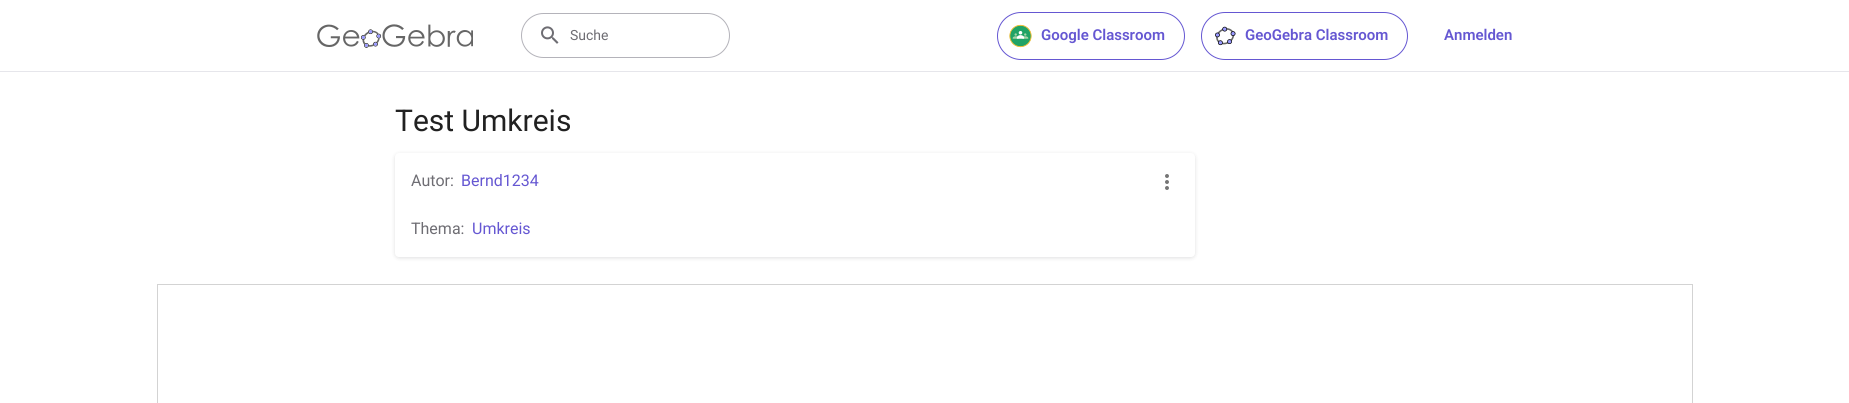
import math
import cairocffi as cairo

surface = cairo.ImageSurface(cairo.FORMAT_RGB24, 1849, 403)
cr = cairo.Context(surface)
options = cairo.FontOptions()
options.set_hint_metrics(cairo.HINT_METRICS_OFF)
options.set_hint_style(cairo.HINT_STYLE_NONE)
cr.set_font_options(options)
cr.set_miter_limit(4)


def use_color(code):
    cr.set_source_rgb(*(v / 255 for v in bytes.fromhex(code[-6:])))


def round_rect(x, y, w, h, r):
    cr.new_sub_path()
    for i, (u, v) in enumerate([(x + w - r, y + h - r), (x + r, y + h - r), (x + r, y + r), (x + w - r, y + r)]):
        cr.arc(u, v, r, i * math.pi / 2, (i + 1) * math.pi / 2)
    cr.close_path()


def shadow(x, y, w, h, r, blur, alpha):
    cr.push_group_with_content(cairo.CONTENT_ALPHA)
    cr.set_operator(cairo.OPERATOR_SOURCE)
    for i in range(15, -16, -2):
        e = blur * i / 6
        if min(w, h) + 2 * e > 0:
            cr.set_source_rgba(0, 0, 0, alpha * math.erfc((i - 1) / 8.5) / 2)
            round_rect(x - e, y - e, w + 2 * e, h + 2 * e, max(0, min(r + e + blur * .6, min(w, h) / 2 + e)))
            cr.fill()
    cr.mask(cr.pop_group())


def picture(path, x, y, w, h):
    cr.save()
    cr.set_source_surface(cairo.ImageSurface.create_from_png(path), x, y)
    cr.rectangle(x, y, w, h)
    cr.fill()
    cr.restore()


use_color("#ffffff")
cr.paint()
use_color("#e6e6eb")
cr.rectangle(0, 71, 1849, 1)
cr.fill()
picture("img1.png", 317, 24, 156, 24)
round_rect(521.5, 13.5, 208, 44, 22)
use_color("#b4b3ba")
cr.set_line_width(1)
cr.stroke()
picture("img2.png", 541, 26, 18, 18)
cr.select_font_face("Roboto")
cr.set_font_size(14)
use_color("#6e6d73")
cr.move_to(570, 40)
cr.show_text("Suche")
round_rect(997.5, 12.5, 187, 47, 23.5)
use_color("#6557d2")
cr.stroke()
picture("img3.png", 1009, 24, 23, 24)
cr.select_font_face("Roboto SemiBold")
cr.set_font_size(15)
cr.move_to(1041, 40)
cr.show_text("Google Classroom")
round_rect(1201.5, 12.5, 206, 47, 23.5)
cr.stroke()
picture("img4.png", 1215, 26, 21, 20)
cr.move_to(1245, 40)
cr.show_text("GeoGebra Classroom")
cr.move_to(1444, 40)
cr.show_text("Anmelden")
cr.select_font_face("Roboto")
cr.set_font_size(30)
use_color("#212121")
cr.move_to(395, 131)
cr.show_text("Test Umkreis")
use_color("#1c1c1f")
shadow(395, 154, 800, 104, 4, 2, 0.14)
use_color("#ffffff")
round_rect(395, 153, 800, 104, 4)
cr.fill()
cr.set_font_size(16)
use_color("#6e6d73")
cr.move_to(411, 186)
cr.show_text("Autor:")
use_color("#6557d2")
cr.move_to(461, 186)
cr.show_text("Bernd1234")
use_color("#6e6d73")
cr.move_to(411, 234)
cr.show_text("Thema:")
use_color("#6557d2")
cr.move_to(472, 234)
cr.show_text("Umkreis")
picture("img5.png", 1165, 174, 4, 16)
cr.rectangle(157.5, 284.5, 1535, 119)
use_color("#d3d3d3")
cr.stroke()
surface.write_to_png("result.png")
